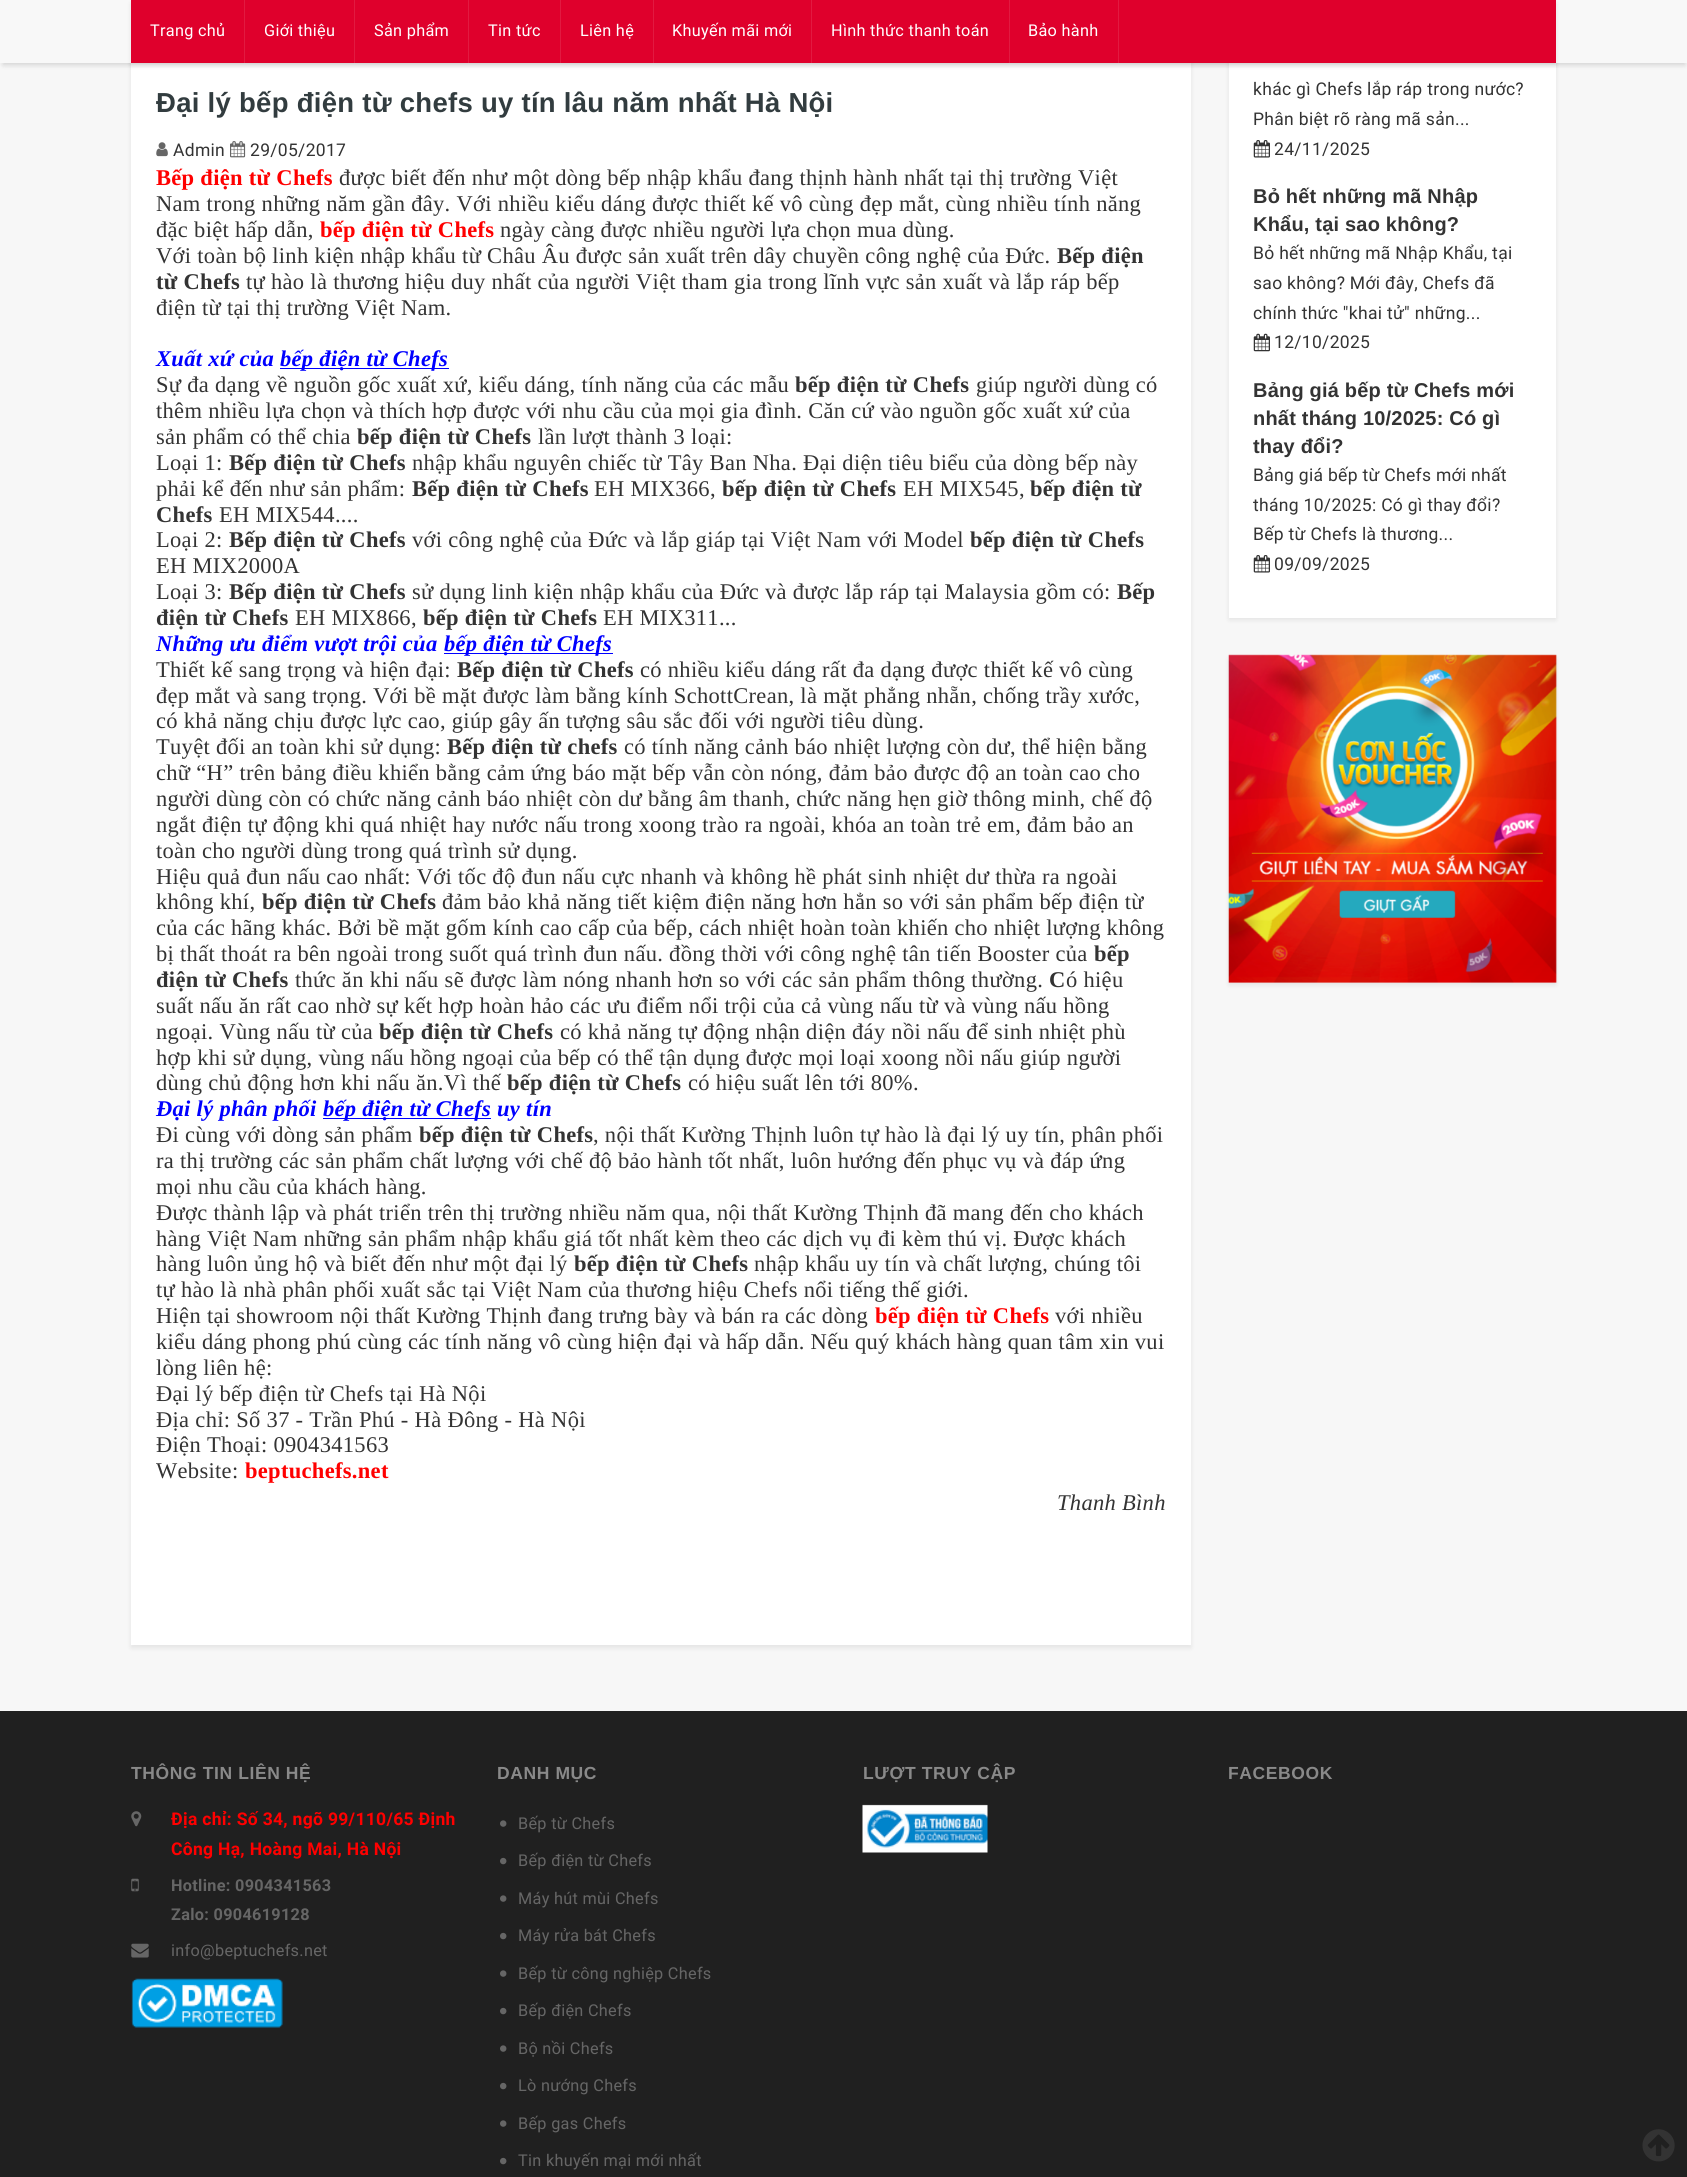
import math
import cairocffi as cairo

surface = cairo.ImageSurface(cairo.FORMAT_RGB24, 1687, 2177)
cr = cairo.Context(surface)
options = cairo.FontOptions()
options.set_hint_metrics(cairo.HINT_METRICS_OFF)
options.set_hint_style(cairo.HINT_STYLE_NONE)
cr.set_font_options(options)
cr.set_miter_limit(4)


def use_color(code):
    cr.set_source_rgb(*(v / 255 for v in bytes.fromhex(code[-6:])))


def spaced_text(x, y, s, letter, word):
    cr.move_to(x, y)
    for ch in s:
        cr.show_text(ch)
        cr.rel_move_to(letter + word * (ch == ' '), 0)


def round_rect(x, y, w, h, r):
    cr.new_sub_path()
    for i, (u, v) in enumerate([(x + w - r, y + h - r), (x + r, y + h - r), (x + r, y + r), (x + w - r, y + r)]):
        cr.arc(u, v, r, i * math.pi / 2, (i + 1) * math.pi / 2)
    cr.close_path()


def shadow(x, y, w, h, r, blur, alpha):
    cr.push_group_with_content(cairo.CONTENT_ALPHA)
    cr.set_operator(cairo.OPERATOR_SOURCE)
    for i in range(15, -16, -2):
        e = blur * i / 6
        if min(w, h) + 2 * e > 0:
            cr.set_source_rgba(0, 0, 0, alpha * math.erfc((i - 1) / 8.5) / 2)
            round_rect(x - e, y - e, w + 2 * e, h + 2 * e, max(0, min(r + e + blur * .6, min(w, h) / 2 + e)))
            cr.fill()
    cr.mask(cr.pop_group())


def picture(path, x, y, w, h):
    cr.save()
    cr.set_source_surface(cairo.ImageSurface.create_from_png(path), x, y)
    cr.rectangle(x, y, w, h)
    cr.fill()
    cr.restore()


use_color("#f7f7f7")
cr.paint()
use_color("#000000")
shadow(131, -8, 1060, 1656, 0, 2.5, 0.08)
use_color("#ffffff")
cr.rectangle(131, 63, 1060, 1582)
cr.fill()
use_color("#000000")
shadow(1229, -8, 327, 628, 0, 2.5, 0.08)
use_color("#ffffff")
cr.rectangle(1229, 63, 327, 555)
cr.fill()
use_color("#000000")
shadow(3, 8, 1682, 57, 0, 2.5, 0.15)
use_color("#f8f8f8")
cr.rectangle(0, 0, 1687, 63)
cr.fill()
use_color("#000000")
shadow(131, 3, 1425, 62, 0, 2.5, 0.08)
use_color("#df002c")
cr.rectangle(131, 0, 1425, 63)
cr.fill()
use_color("#e21a41")
cr.rectangle(244, 0, 1, 63)
cr.fill()
cr.select_font_face("Roboto")
cr.set_font_size(16.25)
use_color("#ffffff")
spaced_text(150, 36, "Trang chủ", 0.31, 0)
use_color("#e21a41")
cr.rectangle(354, 0, 1, 63)
cr.fill()
use_color("#ffffff")
spaced_text(264, 36, "Giới thiệu", 0.31, 0)
use_color("#e21a41")
cr.rectangle(468, 0, 1, 63)
cr.fill()
use_color("#ffffff")
spaced_text(374, 36, "Sản phẩm", 0.31, 0)
use_color("#e21a41")
cr.rectangle(560, 0, 1, 63)
cr.fill()
use_color("#ffffff")
spaced_text(488, 36, "Tin tức", 0.31, 0)
use_color("#e21a41")
cr.rectangle(653, 0, 1, 63)
cr.fill()
use_color("#ffffff")
spaced_text(580, 36, "Liên hệ", 0.31, 0)
use_color("#e21a41")
cr.rectangle(811, 0, 1, 63)
cr.fill()
use_color("#ffffff")
spaced_text(672, 36, "Khuyến mãi mới", 0.31, 0)
use_color("#e21a41")
cr.rectangle(1009, 0, 1, 63)
cr.fill()
use_color("#ffffff")
spaced_text(831, 36, "Hình thức thanh toán", 0.31, 0)
use_color("#e21a41")
cr.rectangle(1118, 0, 1, 63)
cr.fill()
use_color("#ffffff")
spaced_text(1028, 36, "Bảo hành", 0.31, 0)
cr.select_font_face("Liberation Sans", cairo.FONT_SLANT_NORMAL, cairo.FONT_WEIGHT_BOLD)
cr.set_font_size(27.5)
use_color("#323c3f")
spaced_text(156, 112, "Đại lý bếp điện từ chefs uy tín lâu năm nhất Hà Nội", 0.28, 0)
picture("img1.png", 156, 142, 12, 15)
cr.select_font_face("Roboto")
cr.set_font_size(17.5)
use_color("#333333")
spaced_text(173, 156, "Admin", 0.31, 0)
picture("img2.png", 230, 141, 16, 17)
spaced_text(250, 156, "29/05/2017", 0.31, 0)
cr.select_font_face("Liberation Serif", cairo.FONT_SLANT_NORMAL, cairo.FONT_WEIGHT_BOLD)
cr.set_font_size(22.5)
use_color("#ff0000")
spaced_text(156, 185, "Bếp điện từ Chefs", 0.31, 0)
cr.select_font_face("Liberation Serif")
use_color("#333333")
spaced_text(339, 185, "được biết đến như một dòng bếp nhập khẩu đang thịnh hành nhất tại thị trường Việt", 0.31, 0)
spaced_text(156, 211, "Nam trong những năm gần đây. Với nhiều kiểu dáng được thiết kế vô cùng đẹp mắt, cùng nhiều tính năng", 0.31, 0)
spaced_text(156, 237, "đặc biệt hấp dẫn,", 0.31, 0)
cr.select_font_face("Liberation Serif", cairo.FONT_SLANT_NORMAL, cairo.FONT_WEIGHT_BOLD)
use_color("#ff0000")
spaced_text(320, 237, "bếp điện từ Chefs", 0.31, 0)
cr.select_font_face("Liberation Serif")
use_color("#333333")
spaced_text(500, 237, "ngày càng được nhiều người lựa chọn mua dùng.", 0.31, 0)
spaced_text(156, 263, "Với toàn bộ linh kiện nhập khẩu từ Châu Âu được sản xuất trên dây chuyền công nghệ của Đức.", 0.31, 0)
cr.select_font_face("Liberation Serif", cairo.FONT_SLANT_NORMAL, cairo.FONT_WEIGHT_BOLD)
spaced_text(1057, 263, "Bếp điện", 0.31, 0)
spaced_text(156, 289, "từ Chefs", 0.31, 0)
cr.select_font_face("Liberation Serif")
spaced_text(246, 289, "tự hào là thương hiệu duy nhất của người Việt tham gia trong lĩnh vực sản xuất và lắp ráp bếp", 0.31, 0)
spaced_text(156, 315, "điện từ tại thị trường Việt Nam.", 0.31, 0)
cr.select_font_face("Liberation Serif", cairo.FONT_SLANT_ITALIC, cairo.FONT_WEIGHT_BOLD)
use_color("#0000ff")
spaced_text(156, 366, "Xuất xứ của", 0.31, 0)
cr.rectangle(280, 368, 169, 1)
cr.fill()
spaced_text(280, 366, "bếp điện từ Chefs", 0.31, 0)
cr.select_font_face("Liberation Serif")
use_color("#333333")
spaced_text(156, 392, "Sự đa dạng về nguồn gốc xuất xứ, kiểu dáng, tính năng của các mẫu", 0.31, 0)
cr.select_font_face("Liberation Serif", cairo.FONT_SLANT_NORMAL, cairo.FONT_WEIGHT_BOLD)
spaced_text(795, 392, "bếp điện từ Chefs", 0.31, 0)
cr.select_font_face("Liberation Serif")
spaced_text(976, 392, "giúp người dùng có", 0.31, 0)
spaced_text(156, 418, "thêm nhiều lựa chọn và thích hợp được với nhu cầu của mọi gia đình. Căn cứ vào nguồn gốc xuất xứ của", 0.31, 0)
spaced_text(156, 444, "sản phẩm có thể chia", 0.31, 0)
cr.select_font_face("Liberation Serif", cairo.FONT_SLANT_NORMAL, cairo.FONT_WEIGHT_BOLD)
spaced_text(357, 444, "bếp điện từ Chefs", 0.31, 0)
cr.select_font_face("Liberation Serif")
spaced_text(538, 444, "lần lượt thành 3 loại:", 0.31, 0)
spaced_text(156, 470, "Loại 1:", 0.31, 0)
cr.select_font_face("Liberation Serif", cairo.FONT_SLANT_NORMAL, cairo.FONT_WEIGHT_BOLD)
spaced_text(229, 470, "Bếp điện từ Chefs", 0.31, 0)
cr.select_font_face("Liberation Serif")
spaced_text(412, 470, "nhập khẩu nguyên chiếc từ Tây Ban Nha. Đại diện tiêu biểu của dòng bếp này", 0.31, 0)
spaced_text(156, 496, "phải kể đến như sản phẩm:", 0.31, 0)
cr.select_font_face("Liberation Serif", cairo.FONT_SLANT_NORMAL, cairo.FONT_WEIGHT_BOLD)
spaced_text(412, 496, "Bếp điện từ Chefs", 0.31, 0)
cr.select_font_face("Liberation Serif")
spaced_text(594, 496, "EH MIX366,", 0.31, 0)
cr.select_font_face("Liberation Serif", cairo.FONT_SLANT_NORMAL, cairo.FONT_WEIGHT_BOLD)
spaced_text(722, 496, "bếp điện từ Chefs", 0.31, 0)
cr.select_font_face("Liberation Serif")
spaced_text(903, 496, "EH MIX545,", 0.31, 0)
cr.select_font_face("Liberation Serif", cairo.FONT_SLANT_NORMAL, cairo.FONT_WEIGHT_BOLD)
spaced_text(1030, 496, "bếp điện từ", 0.31, 0)
spaced_text(156, 522, "Chefs", 0.31, 0)
cr.select_font_face("Liberation Serif")
spaced_text(219, 522, "EH MIX544....", 0.31, 0)
spaced_text(156, 547, "Loại 2:", 0.31, 0)
cr.select_font_face("Liberation Serif", cairo.FONT_SLANT_NORMAL, cairo.FONT_WEIGHT_BOLD)
spaced_text(229, 547, "Bếp điện từ Chefs", 0.31, 0)
cr.select_font_face("Liberation Serif")
spaced_text(412, 547, "với công nghệ của Đức và lắp giáp tại Việt Nam với Model", 0.31, 0)
cr.select_font_face("Liberation Serif", cairo.FONT_SLANT_NORMAL, cairo.FONT_WEIGHT_BOLD)
spaced_text(970, 547, "bếp điện từ Chefs", 0.31, 0)
cr.select_font_face("Liberation Serif")
spaced_text(156, 573, "EH MIX2000A", 0.31, 0)
spaced_text(156, 599, "Loại 3:", 0.31, 0)
cr.select_font_face("Liberation Serif", cairo.FONT_SLANT_NORMAL, cairo.FONT_WEIGHT_BOLD)
spaced_text(229, 599, "Bếp điện từ Chefs", 0.31, 0)
cr.select_font_face("Liberation Serif")
spaced_text(412, 599, "sử dụng linh kiện nhập khẩu của Đức và được lắp ráp tại Malaysia gồm có:", 0.31, 0)
cr.select_font_face("Liberation Serif", cairo.FONT_SLANT_NORMAL, cairo.FONT_WEIGHT_BOLD)
spaced_text(1117, 599, "Bếp", 0.31, 0)
spaced_text(156, 625, "điện từ Chefs", 0.31, 0)
cr.select_font_face("Liberation Serif")
spaced_text(295, 625, "EH MIX866,", 0.31, 0)
cr.select_font_face("Liberation Serif", cairo.FONT_SLANT_NORMAL, cairo.FONT_WEIGHT_BOLD)
spaced_text(423, 625, "bếp điện từ Chefs", 0.31, 0)
cr.select_font_face("Liberation Serif")
spaced_text(603, 625, "EH MIX311...", 0.31, 0)
cr.select_font_face("Liberation Serif", cairo.FONT_SLANT_ITALIC, cairo.FONT_WEIGHT_BOLD)
use_color("#0000ff")
spaced_text(156, 651, "Những ưu điểm vượt trội của", 0.31, 0)
cr.rectangle(444, 653, 169, 1)
cr.fill()
spaced_text(444, 651, "bếp điện từ Chefs", 0.31, 0)
cr.select_font_face("Liberation Serif")
use_color("#333333")
spaced_text(156, 677, "Thiết kế sang trọng và hiện đại:", 0.31, 0)
cr.select_font_face("Liberation Serif", cairo.FONT_SLANT_NORMAL, cairo.FONT_WEIGHT_BOLD)
spaced_text(457, 677, "Bếp điện từ Chefs", 0.31, 0)
cr.select_font_face("Liberation Serif")
spaced_text(640, 677, "có nhiều kiểu dáng rất đa dạng được thiết kế vô cùng", 0.31, 0)
spaced_text(156, 703, "đẹp mắt và sang trọng. Với bề mặt được làm bằng kính SchottCrean, là mặt phẳng nhẵn, chống trầy xước,", 0.31, 0)
spaced_text(156, 728, "có khả năng chịu được lực cao, giúp gây ấn tượng sâu sắc đối với người tiêu dùng.", 0.31, 0)
spaced_text(156, 754, "Tuyệt đối an toàn khi sử dụng:", 0.31, 0)
cr.select_font_face("Liberation Serif", cairo.FONT_SLANT_NORMAL, cairo.FONT_WEIGHT_BOLD)
spaced_text(447, 754, "Bếp điện từ chefs", 0.31, 0)
cr.select_font_face("Liberation Serif")
spaced_text(624, 754, "có tính năng cảnh báo nhiệt lượng còn dư, thể hiện bằng", 0.31, 0)
spaced_text(156, 780, "chữ “H” trên bảng điều khiển bằng cảm ứng báo mặt bếp vẫn còn nóng, đảm bảo được độ an toàn cao cho", 0.31, 0)
spaced_text(156, 806, "người dùng còn có chức năng cảnh báo nhiệt còn dư bằng âm thanh, chức năng hẹn giờ thông minh, chế độ", 0.31, 0)
spaced_text(156, 832, "ngắt điện tự động khi quá nhiệt hay nước nấu trong xoong trào ra ngoài, khóa an toàn trẻ em, đảm bảo an", 0.31, 0)
spaced_text(156, 858, "toàn cho người dùng trong quá trình sử dụng.", 0.31, 0)
spaced_text(156, 884, "Hiệu quả đun nấu cao nhất: Với tốc độ đun nấu cực nhanh và không hề phát sinh nhiệt dư thừa ra ngoài", 0.31, 0)
spaced_text(156, 909, "không khí,", 0.31, 0)
cr.select_font_face("Liberation Serif", cairo.FONT_SLANT_NORMAL, cairo.FONT_WEIGHT_BOLD)
spaced_text(262, 909, "bếp điện từ Chefs", 0.31, 0)
cr.select_font_face("Liberation Serif")
spaced_text(442, 909, "đảm bảo khả năng tiết kiệm điện năng hơn hẳn so với sản phẩm bếp điện từ", 0.31, 0)
spaced_text(156, 935, "của các hãng khác. Bởi bề mặt gốm kính cao cấp của bếp, cách nhiệt hoàn toàn khiến cho nhiệt lượng không", 0.31, 0)
spaced_text(156, 961, "bị thất thoát ra bên ngoài trong suốt quá trình đun nấu. đồng thời với công nghệ tân tiến Booster của", 0.31, 0)
cr.select_font_face("Liberation Serif", cairo.FONT_SLANT_NORMAL, cairo.FONT_WEIGHT_BOLD)
spaced_text(1094, 961, "bếp", 0.31, 0)
spaced_text(156, 987, "điện từ Chefs", 0.31, 0)
cr.select_font_face("Liberation Serif")
spaced_text(295, 987, "thức ăn khi nấu sẽ được làm nóng nhanh hơn so với các sản phẩm thông thường.", 0.31, 0)
cr.select_font_face("Liberation Serif", cairo.FONT_SLANT_NORMAL, cairo.FONT_WEIGHT_BOLD)
spaced_text(1049, 987, "C", 0.31, 0)
cr.select_font_face("Liberation Serif")
spaced_text(1066, 987, "ó hiệu", 0.31, 0)
spaced_text(156, 1013, "suất nấu ăn rất cao nhờ sự kết hợp hoàn hảo các ưu điểm nổi trội của cả vùng nấu từ và vùng nấu hồng", 0.31, 0)
spaced_text(156, 1039, "ngoại. Vùng nấu từ của", 0.31, 0)
cr.select_font_face("Liberation Serif", cairo.FONT_SLANT_NORMAL, cairo.FONT_WEIGHT_BOLD)
spaced_text(379, 1039, "bếp điện từ Chefs", 0.31, 0)
cr.select_font_face("Liberation Serif")
spaced_text(560, 1039, "có khả năng tự động nhận diện đáy nồi nấu để sinh nhiệt phù", 0.31, 0)
spaced_text(156, 1065, "hợp khi sử dụng, vùng nấu hồng ngoại của bếp có thể tận dụng được mọi loại xoong nồi nấu giúp người", 0.31, 0)
spaced_text(156, 1090, "dùng chủ động hơn khi nấu ăn.Vì thế", 0.31, 0)
cr.select_font_face("Liberation Serif", cairo.FONT_SLANT_NORMAL, cairo.FONT_WEIGHT_BOLD)
spaced_text(507, 1090, "bếp điện từ Chefs", 0.31, 0)
cr.select_font_face("Liberation Serif")
spaced_text(688, 1090, "có hiệu suất lên tới 80%.", 0.31, 0)
cr.select_font_face("Liberation Serif", cairo.FONT_SLANT_ITALIC, cairo.FONT_WEIGHT_BOLD)
use_color("#0000ff")
spaced_text(156, 1116, "Đại lý phân phối", 0.31, 0)
cr.rectangle(323, 1118, 168, 1)
cr.fill()
spaced_text(323, 1116, "bếp điện từ Chefs uy tín", 0.31, 0)
cr.select_font_face("Liberation Serif")
use_color("#333333")
spaced_text(156, 1142, "Đi cùng với dòng sản phẩm", 0.31, 0)
cr.select_font_face("Liberation Serif", cairo.FONT_SLANT_NORMAL, cairo.FONT_WEIGHT_BOLD)
spaced_text(419, 1142, "bếp điện từ Chefs", 0.31, 0)
cr.select_font_face("Liberation Serif")
spaced_text(593, 1142, ", nội thất Kường Thịnh luôn tự hào là đại lý uy tín, phân phối", 0.31, 0)
spaced_text(156, 1168, "ra thị trường các sản phẩm chất lượng với chế độ bảo hành tốt nhất, luôn hướng đến phục vụ và đáp ứng", 0.31, 0)
spaced_text(156, 1194, "mọi nhu cầu của khách hàng.", 0.31, 0)
spaced_text(156, 1220, "Được thành lập và phát triển trên thị trường nhiều năm qua, nội thất Kường Thịnh đã mang đến cho khách", 0.31, 0)
spaced_text(156, 1246, "hàng Việt Nam những sản phẩm nhập khẩu giá tốt nhất kèm theo các dịch vụ đi kèm thú vị. Được khách", 0.31, 0)
spaced_text(156, 1271, "hàng luôn ủng hộ và biết đến như một đại lý", 0.31, 0)
cr.select_font_face("Liberation Serif", cairo.FONT_SLANT_NORMAL, cairo.FONT_WEIGHT_BOLD)
spaced_text(574, 1271, "bếp điện từ Chefs", 0.31, 0)
cr.select_font_face("Liberation Serif")
spaced_text(754, 1271, "nhập khẩu uy tín và chất lượng, chúng tôi", 0.31, 0)
spaced_text(156, 1297, "tự hào là nhà phân phối xuất sắc tại Việt Nam của thương hiệu Chefs nổi tiếng thế giới.", 0.31, 0)
spaced_text(156, 1323, "Hiện tại showroom nội thất Kường Thịnh đang trưng bày và bán ra các dòng", 0.31, 0)
cr.select_font_face("Liberation Serif", cairo.FONT_SLANT_NORMAL, cairo.FONT_WEIGHT_BOLD)
use_color("#ff0000")
spaced_text(875, 1323, "bếp điện từ Chefs", 0.31, 0)
cr.select_font_face("Liberation Serif")
use_color("#333333")
spaced_text(1055, 1323, "với nhiều", 0.31, 0)
spaced_text(156, 1349, "kiểu dáng phong phú cùng các tính năng vô cùng hiện đại và hấp dẫn. Nếu quý khách hàng quan tâm xin vui", 0.31, 0)
spaced_text(156, 1375, "lòng liên hệ:", 0.31, 0)
spaced_text(156, 1401, "Đại lý bếp điện từ Chefs tại Hà Nội", 0.31, 0)
spaced_text(156, 1427, "Địa chỉ: Số 37 - Trần Phú - Hà Đông - Hà Nội", 0.31, 0)
spaced_text(156, 1452, "Điện Thoại: 0904341563", 0.31, 0)
spaced_text(156, 1478, "Website:", 0.31, 0)
cr.select_font_face("Liberation Serif", cairo.FONT_SLANT_NORMAL, cairo.FONT_WEIGHT_BOLD)
use_color("#ff0000")
spaced_text(245, 1478, "beptuchefs.net", 0.31, 0)
cr.select_font_face("Liberation Serif", cairo.FONT_SLANT_ITALIC)
use_color("#333333")
spaced_text(1057, 1510, "Thanh Bình", 0.31, 0)
cr.select_font_face("Roboto")
cr.set_font_size(17.5)
spaced_text(1253, 95, "khác gì Chefs lắp ráp trong nước?", 0.31, 0)
spaced_text(1253, 125, "Phân biệt rõ ràng mã sản...", 0.31, 0)
picture("img3.png", 1253, 140, 17, 18)
spaced_text(1274, 155, "24/11/2025", 0.31, 0)
cr.select_font_face("Liberation Sans", cairo.FONT_SLANT_NORMAL, cairo.FONT_WEIGHT_BOLD)
cr.set_font_size(20)
spaced_text(1253, 203, "Bỏ hết những mã Nhập", 0.2, 0)
spaced_text(1253, 231, "Khẩu, tại sao không?", 0.2, 0)
cr.select_font_face("Roboto")
cr.set_font_size(17.5)
spaced_text(1253, 259, "Bỏ hết những mã Nhập Khẩu, tại", 0.31, 0)
spaced_text(1253, 289, "sao không? Mới đây, Chefs đã", 0.31, 0)
spaced_text(1253, 319, "chính thức \"khai tử\" những...", 0.31, 0)
picture("img4.png", 1253, 333, 17, 19)
spaced_text(1274, 348, "12/10/2025", 0.31, 0)
cr.select_font_face("Liberation Sans", cairo.FONT_SLANT_NORMAL, cairo.FONT_WEIGHT_BOLD)
cr.set_font_size(20)
spaced_text(1253, 397, "Bảng giá bếp từ Chefs mới", 0.2, 0)
spaced_text(1253, 425, "nhất tháng 10/2025: Có gì", 0.2, 0)
spaced_text(1253, 453, "thay đổi?", 0.2, 0)
cr.select_font_face("Roboto")
cr.set_font_size(17.5)
spaced_text(1253, 481, "Bảng giá bếp từ Chefs mới nhất", 0.31, 0)
spaced_text(1253, 511, "tháng 10/2025: Có gì thay đổi?", 0.31, 0)
spaced_text(1253, 540, "Bếp từ Chefs là thương...", 0.31, 0)
picture("img3.png", 1253, 555, 17, 18)
spaced_text(1274, 570, "09/09/2025", 0.31, 0)
use_color("#000000")
shadow(1229, 658, 327, 327, 0, 2.5, 0.08)
picture("img5.png", 1228, 654, 329, 329)
use_color("#202020")
cr.rectangle(0, 1711, 1687, 466)
cr.fill()
cr.select_font_face("Liberation Sans", cairo.FONT_SLANT_NORMAL, cairo.FONT_WEIGHT_BOLD)
use_color("#898989")
spaced_text(131, 1779, "THÔNG TIN LIÊN HỆ", 0.6, 0)
picture("img6.png", 131, 1811, 11, 16)
cr.select_font_face("Roboto", cairo.FONT_SLANT_NORMAL, cairo.FONT_WEIGHT_BOLD)
use_color("#ff0000")
spaced_text(171, 1825, "Địa chỉ: Số 34, ngõ 99/110/65 Định", 0.31, 0)
spaced_text(171, 1855, "Công Hạ, Hoàng Mai, Hà Nội", 0.31, 0)
picture("img7.png", 131, 1878, 8, 14)
cr.set_font_size(16.25)
use_color("#666666")
spaced_text(171, 1891, "Hotline: 0904341563", 0.31, 0)
spaced_text(171, 1920, "Zalo: 0904619128", 0.31, 0)
picture("img8.png", 131, 1943, 18, 15)
cr.select_font_face("Roboto")
spaced_text(171, 1956, "info@beptuchefs.net", 0.31, 0)
picture("img9.png", 131, 1978, 152, 50)
cr.select_font_face("Liberation Sans", cairo.FONT_SLANT_NORMAL, cairo.FONT_WEIGHT_BOLD)
cr.set_font_size(17.5)
use_color("#898989")
spaced_text(497, 1779, "DANH MỤC", 0.6, 0)
picture("img10.png", 500, 1820, 7, 7)
cr.select_font_face("Roboto")
cr.set_font_size(16.25)
use_color("#666666")
spaced_text(518, 1829, "Bếp từ Chefs", 0.31, 0)
picture("img11.png", 500, 1857, 7, 8)
spaced_text(518, 1866, "Bếp điện từ Chefs", 0.31, 0)
picture("img10.png", 500, 1895, 7, 7)
spaced_text(518, 1904, "Máy hút mùi Chefs", 0.31, 0)
picture("img11.png", 500, 1932, 7, 8)
spaced_text(518, 1941, "Máy rửa bát Chefs", 0.31, 0)
picture("img10.png", 500, 1970, 7, 7)
spaced_text(518, 1979, "Bếp từ công nghiệp Chefs", 0.31, 0)
picture("img11.png", 500, 2007, 7, 8)
spaced_text(518, 2016, "Bếp điện Chefs", 0.31, 0)
picture("img10.png", 500, 2045, 7, 7)
spaced_text(518, 2054, "Bộ nồi Chefs", 0.31, 0)
picture("img11.png", 500, 2082, 7, 8)
spaced_text(518, 2091, "Lò nướng Chefs", 0.31, 0)
picture("img10.png", 500, 2120, 7, 7)
spaced_text(518, 2129, "Bếp gas Chefs", 0.31, 0)
picture("img11.png", 500, 2157, 7, 8)
spaced_text(518, 2166, "Tin khuyến mại mới nhất", 0.31, 0)
cr.select_font_face("Liberation Sans", cairo.FONT_SLANT_NORMAL, cairo.FONT_WEIGHT_BOLD)
cr.set_font_size(17.5)
use_color("#898989")
spaced_text(863, 1779, "LƯỢT TRUY CẬP", 0.6, 0)
picture("img12.png", 862, 1804, 126, 49)
spaced_text(1228, 1779, "FACEBOOK", 0.6, 0)
picture("img13.png", 1642, 2129, 33, 33)
surface.write_to_png("result.png")
